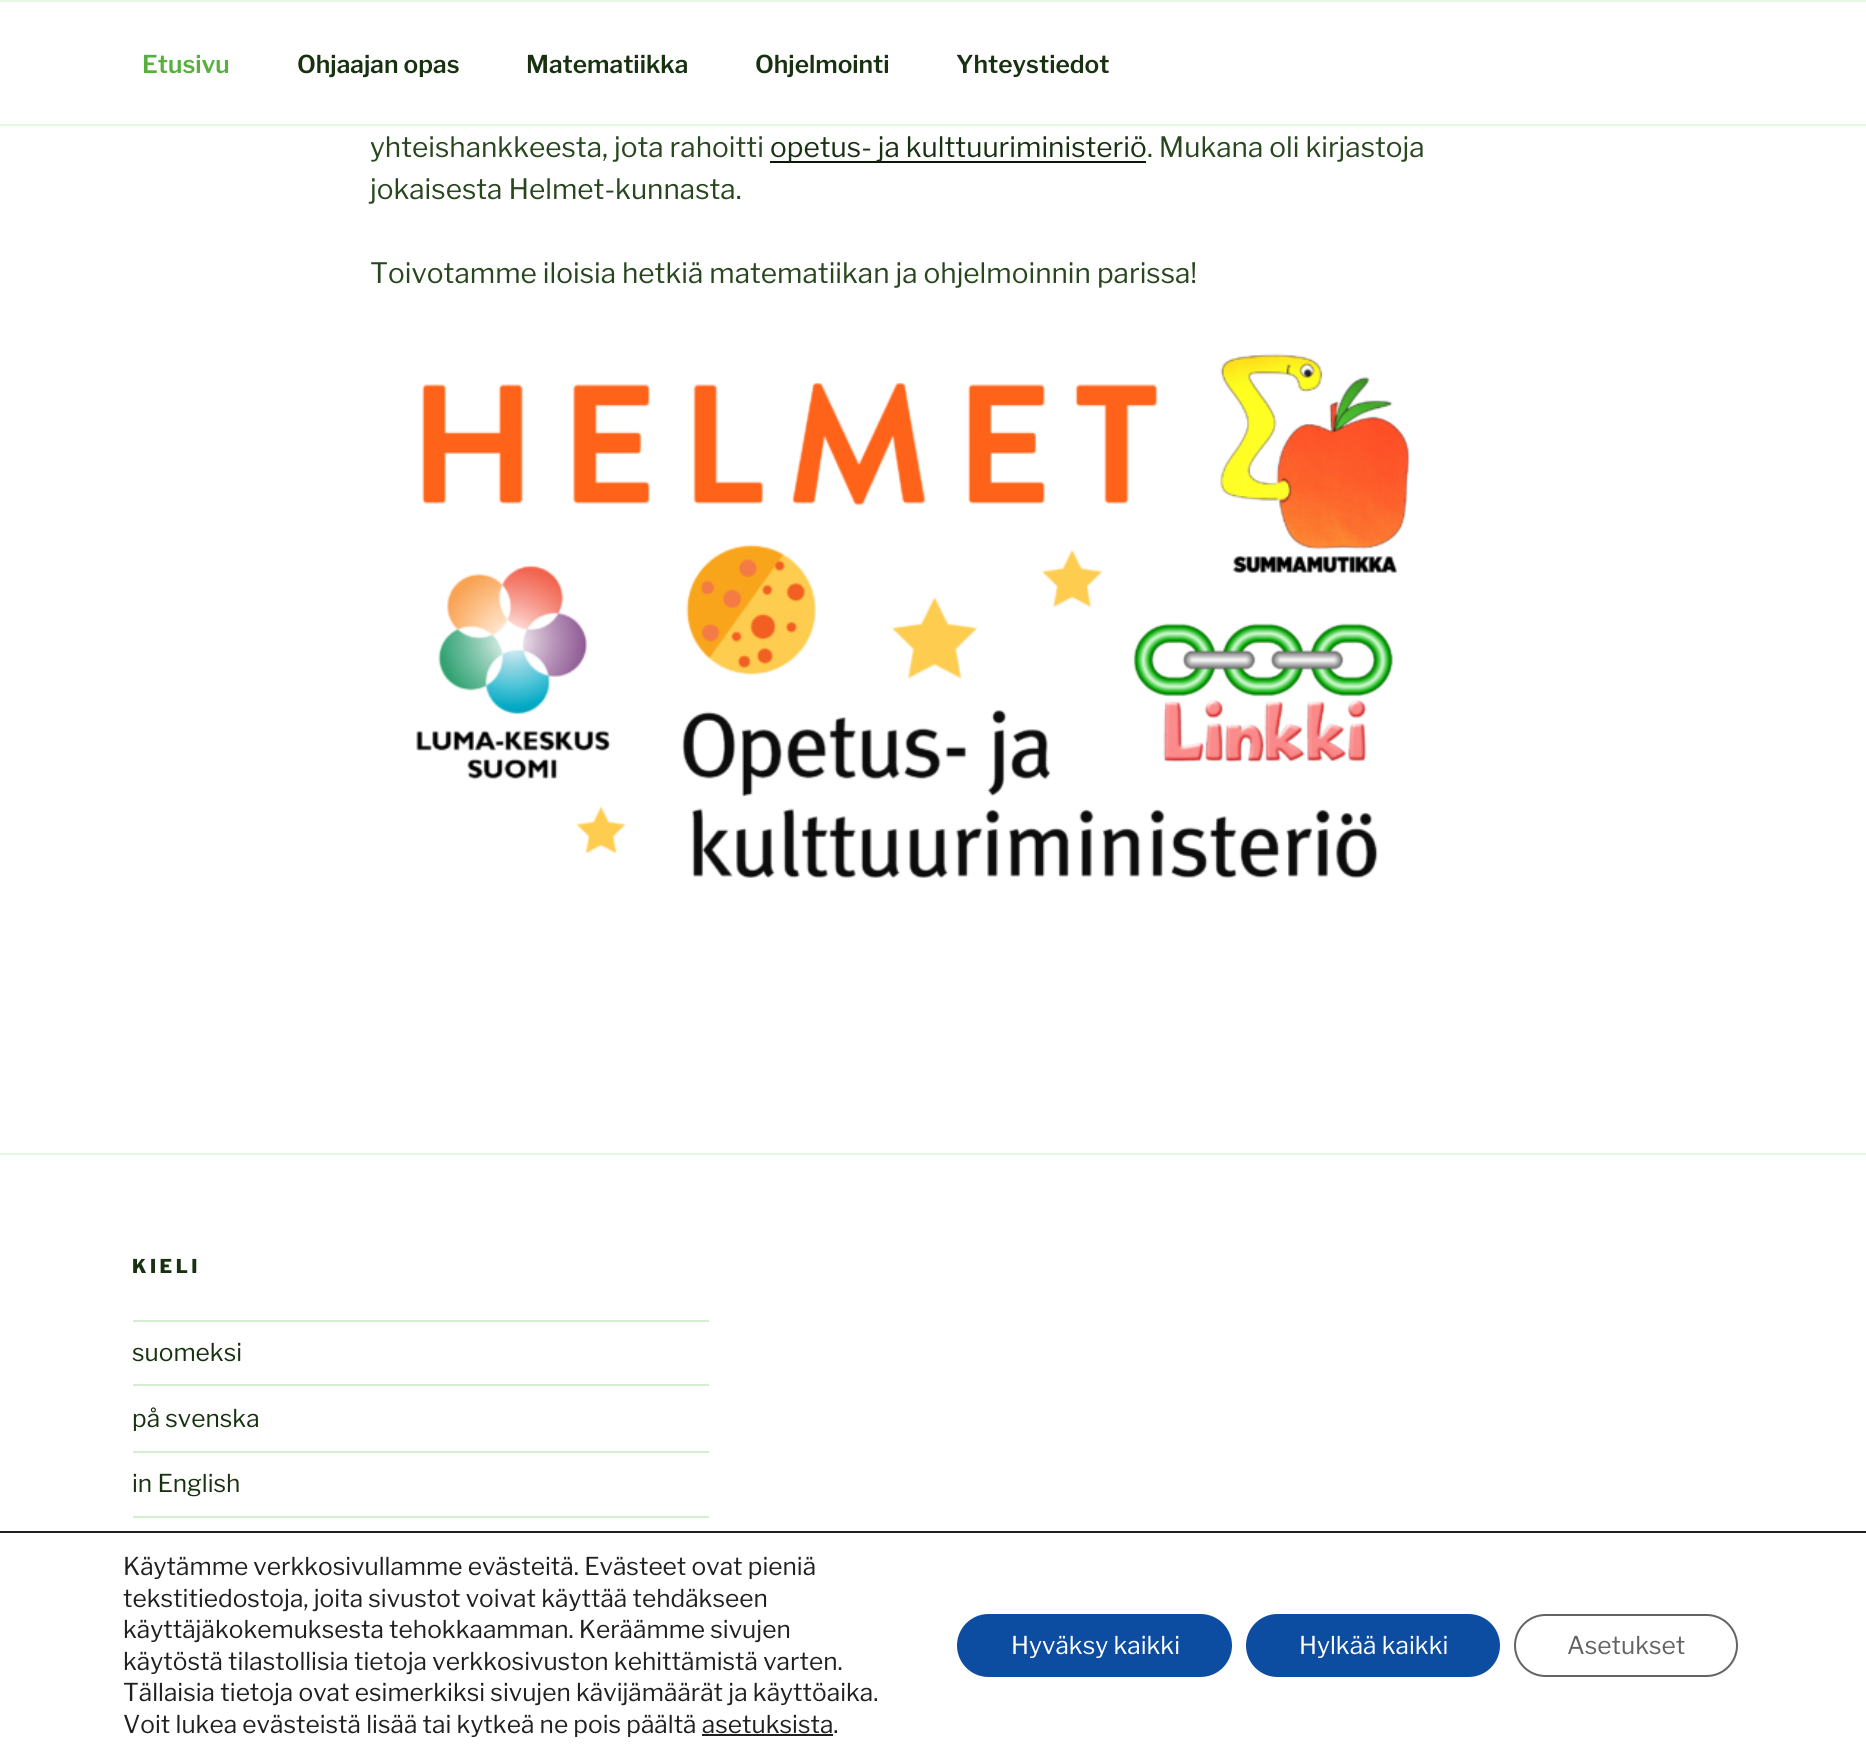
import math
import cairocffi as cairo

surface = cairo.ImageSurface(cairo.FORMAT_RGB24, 1866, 1757)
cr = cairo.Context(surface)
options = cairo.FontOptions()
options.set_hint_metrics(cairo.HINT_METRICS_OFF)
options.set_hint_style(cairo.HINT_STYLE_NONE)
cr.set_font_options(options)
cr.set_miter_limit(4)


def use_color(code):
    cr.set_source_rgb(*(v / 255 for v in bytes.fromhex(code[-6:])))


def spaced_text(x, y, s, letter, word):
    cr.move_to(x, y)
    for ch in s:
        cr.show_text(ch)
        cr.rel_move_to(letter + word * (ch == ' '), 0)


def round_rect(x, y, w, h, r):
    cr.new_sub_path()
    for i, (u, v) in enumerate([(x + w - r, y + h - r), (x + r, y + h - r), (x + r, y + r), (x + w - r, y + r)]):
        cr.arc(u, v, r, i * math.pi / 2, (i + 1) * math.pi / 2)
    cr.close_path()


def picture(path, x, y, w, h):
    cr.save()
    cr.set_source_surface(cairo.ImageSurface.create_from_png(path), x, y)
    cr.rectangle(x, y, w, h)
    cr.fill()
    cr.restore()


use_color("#ffffff")
cr.paint()
use_color("#e8f6e4")
cr.rectangle(0, 0, 1866, 2)
cr.fill()
cr.rectangle(0, 124, 1866, 2)
cr.fill()
cr.select_font_face("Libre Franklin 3 Thin")
cr.set_font_size(24.5)
use_color("#56b03b")
cr.move_to(142, 73)
cr.show_text("Etusivu")
use_color("#183211")
cr.move_to(297, 73)
cr.show_text("Ohjaajan opas")
cr.move_to(526, 73)
cr.show_text("Matematiikka")
cr.move_to(755, 73)
cr.show_text("Ohjelmointi")
cr.move_to(956, 73)
cr.show_text("Yhteystiedot")
cr.select_font_face("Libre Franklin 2 Thin")
cr.set_font_size(28)
use_color("#28471f")
cr.move_to(370, 157)
cr.show_text("yhteishankkeesta, jota rahoitti")
use_color("#0b1708")
cr.rectangle(770, 161, 376, 2)
cr.fill()
use_color("#183211")
cr.move_to(770, 157)
cr.show_text("opetus- ja kulttuuriministeriö")
use_color("#28471f")
cr.move_to(1147, 157)
cr.show_text(". Mukana oli kirjastoja")
cr.move_to(370, 199)
cr.show_text("jokaisesta Helmet-kunnasta.")
cr.move_to(370, 283)
cr.show_text("Toivotamme iloisia hetkiä matematiikan ja ohjelmoinnin parissa!")
picture("img1.png", 416, 353, 994, 525)
use_color("#e8f6e4")
cr.rectangle(0, 1153, 1866, 2)
cr.fill()
cr.select_font_face("Libre Franklin Thin")
cr.set_font_size(19)
use_color("#183211")
spaced_text(132, 1273, "KIELI", 3.5, 0)
use_color("#d5eecd")
cr.rectangle(133, 1320, 576, 2)
cr.fill()
cr.rectangle(133, 1384, 576, 2)
cr.fill()
cr.select_font_face("Libre Franklin 2 Thin")
cr.set_font_size(24.5)
use_color("#183211")
cr.move_to(132, 1361)
cr.show_text("suomeksi")
use_color("#d5eecd")
cr.rectangle(133, 1451, 576, 2)
cr.fill()
use_color("#183211")
cr.move_to(132, 1427)
cr.show_text("på svenska")
use_color("#d5eecd")
cr.rectangle(133, 1516, 576, 2)
cr.fill()
use_color("#183211")
cr.move_to(132, 1492)
cr.show_text("in English")
use_color("#202020")
cr.rectangle(0, 1531, 1866, 2)
cr.fill()
cr.move_to(123, 1575)
cr.show_text("Käytämme verkkosivullamme evästeitä. Evästeet ovat pieniä")
cr.move_to(123, 1607)
cr.show_text("tekstitiedostoja, joita sivustot voivat käyttää tehdäkseen")
cr.move_to(123, 1638)
cr.show_text("käyttäjäkokemuksesta tehokkaamman. Keräämme sivujen")
cr.move_to(123, 1670)
cr.show_text("käytöstä tilastollisia tietoja verkkosivuston kehittämistä varten.")
cr.move_to(123, 1701)
cr.show_text("Tällaisia tietoja ovat esimerkiksi sivujen kävijämäärät ja käyttöaika.")
cr.move_to(123, 1733)
cr.show_text("Voit lukea evästeistä lisää tai kytkeä ne pois päältä asetuksista.")
cr.rectangle(702, 1734, 131, 2)
cr.fill()
use_color("#0c4da2")
round_rect(957, 1614, 275, 63, 31.5)
cr.fill()
use_color("#ffffff")
cr.move_to(1011, 1654)
cr.show_text("Hyväksy kaikki")
use_color("#0c4da2")
round_rect(1246, 1614, 254, 63, 31.5)
cr.fill()
use_color("#ffffff")
cr.move_to(1299, 1654)
cr.show_text("Hylkää kaikki")
round_rect(1515, 1615, 222, 61, 30.5)
use_color("#636363")
cr.stroke()
cr.move_to(1567, 1654)
cr.show_text("Asetukset")
surface.write_to_png("result.png")
